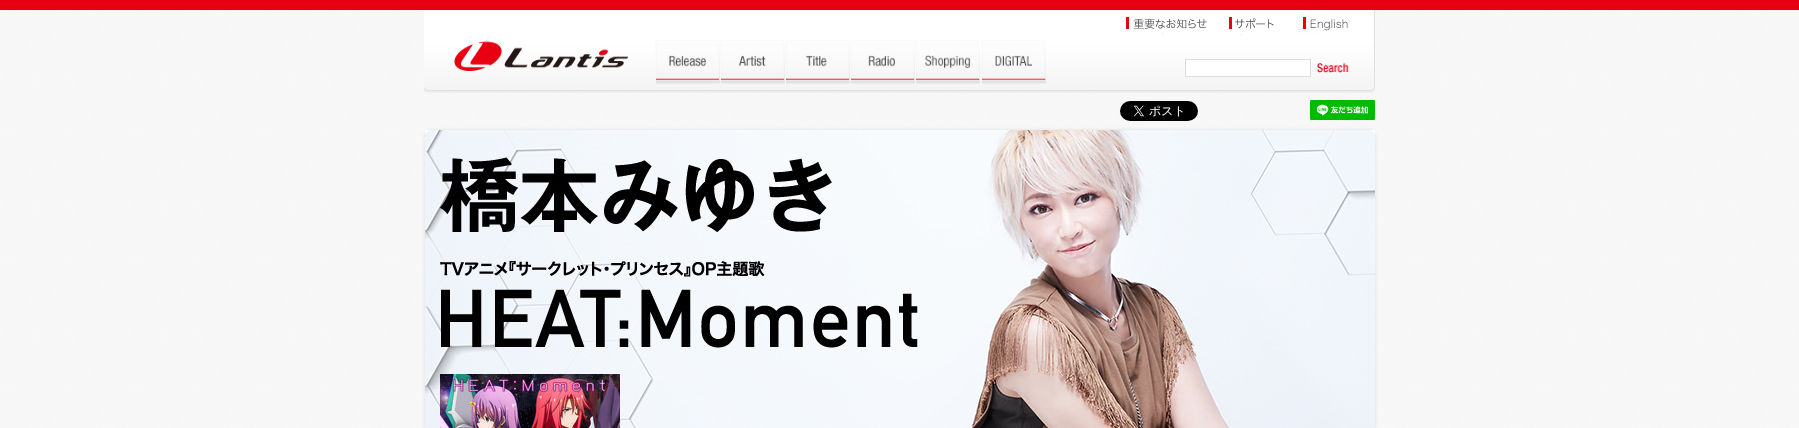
import math
import cairocffi as cairo

surface = cairo.ImageSurface(cairo.FORMAT_RGB24, 1799, 428)
cr = cairo.Context(surface)
options = cairo.FontOptions()
options.set_hint_metrics(cairo.HINT_METRICS_OFF)
options.set_hint_style(cairo.HINT_STYLE_NONE)
cr.set_font_options(options)
cr.set_miter_limit(4)


def use_color(code):
    cr.set_source_rgb(*(v / 255 for v in bytes.fromhex(code[-6:])))


def round_rect(x, y, w, h, r):
    cr.new_sub_path()
    for i, (u, v) in enumerate([(x + w - r, y + h - r), (x + r, y + h - r), (x + r, y + r), (x + w - r, y + r)]):
        cr.arc(u, v, r, i * math.pi / 2, (i + 1) * math.pi / 2)
    cr.close_path()


def shadow(x, y, w, h, r, blur, alpha):
    cr.push_group_with_content(cairo.CONTENT_ALPHA)
    cr.set_operator(cairo.OPERATOR_SOURCE)
    for i in range(15, -16, -2):
        e = blur * i / 6
        if min(w, h) + 2 * e > 0:
            cr.set_source_rgba(0, 0, 0, alpha * math.erfc((i - 1) / 8.5) / 2)
            round_rect(x - e, y - e, w + 2 * e, h + 2 * e, max(0, min(r + e + blur * .6, min(w, h) / 2 + e)))
            cr.fill()
    cr.mask(cr.pop_group())


def picture(path, x, y, w, h):
    cr.save()
    cr.set_source_surface(cairo.ImageSurface.create_from_png(path), x, y)
    cr.rectangle(x, y, w, h)
    cr.fill()
    cr.restore()


use_color("#ffffff")
cr.paint()
picture("img1.png", 0, 10, 1799, 418)
use_color("#e60012")
cr.rectangle(0, 0, 1799, 10)
cr.fill()
picture("img2.png", 424, 10, 951, 83)
picture("img3.png", 1126, 17, 81, 19)
picture("img4.png", 1228, 17, 46, 19)
picture("img5.png", 1297, 10, 51, 24)
picture("img6.png", 454, 41, 174, 30)
picture("img7.png", 655, 40, 65, 44)
picture("img8.png", 720, 40, 65, 44)
picture("img9.png", 785, 40, 65, 44)
picture("img10.png", 850, 40, 65, 44)
picture("img11.png", 915, 40, 65, 44)
picture("img12.png", 981, 40, 65, 44)
use_color("#ffffff")
cr.rectangle(1185.5, 59.5, 125, 17)
cr.fill_preserve()
use_color("#dddddd")
cr.set_line_width(1)
cr.stroke()
picture("img13.png", 1317, 63, 32, 10)
picture("img14.png", 1120, 101, 78, 20)
picture("img15.png", 1310, 100, 65, 20)
use_color("#dddddd")
shadow(425, 130, 950, 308, 5, 1.5, 1)
picture("img16.png", 425, 130, 950, 298)
surface.write_to_png("result.png")
